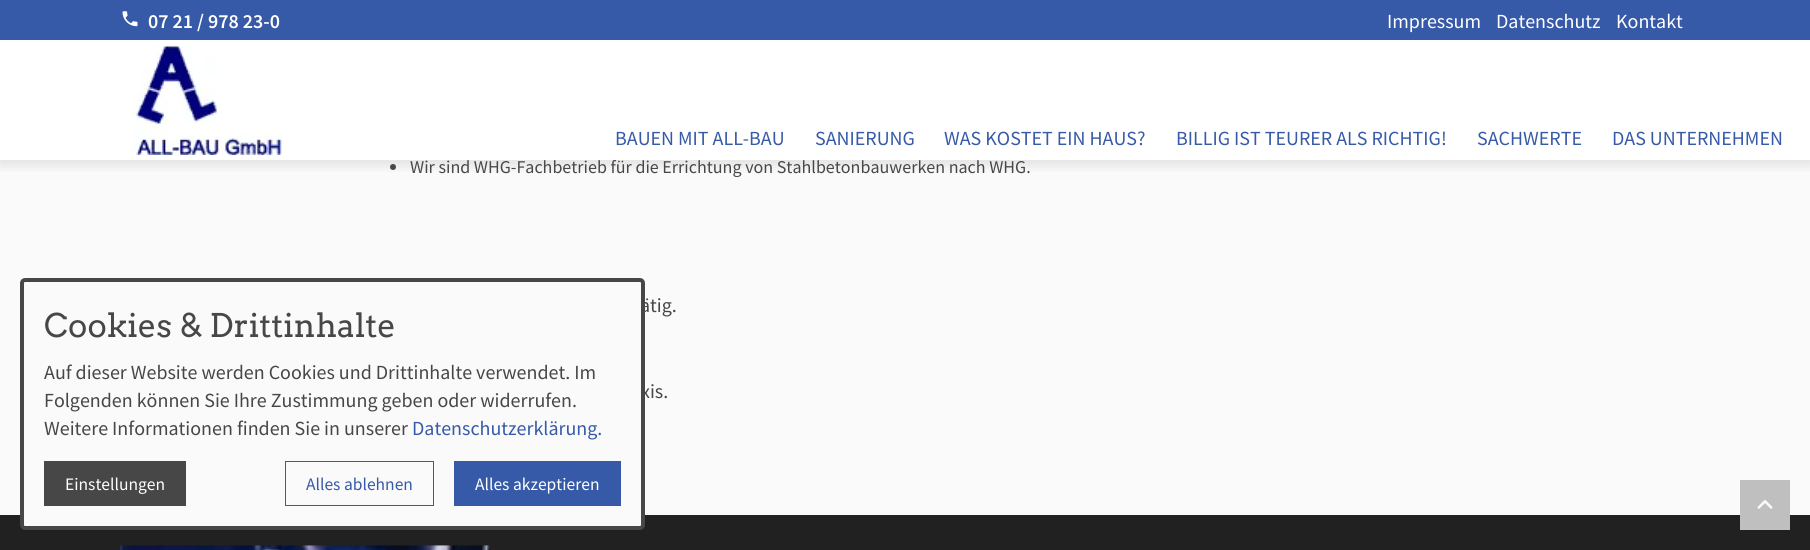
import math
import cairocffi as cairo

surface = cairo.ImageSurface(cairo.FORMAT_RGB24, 1810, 550)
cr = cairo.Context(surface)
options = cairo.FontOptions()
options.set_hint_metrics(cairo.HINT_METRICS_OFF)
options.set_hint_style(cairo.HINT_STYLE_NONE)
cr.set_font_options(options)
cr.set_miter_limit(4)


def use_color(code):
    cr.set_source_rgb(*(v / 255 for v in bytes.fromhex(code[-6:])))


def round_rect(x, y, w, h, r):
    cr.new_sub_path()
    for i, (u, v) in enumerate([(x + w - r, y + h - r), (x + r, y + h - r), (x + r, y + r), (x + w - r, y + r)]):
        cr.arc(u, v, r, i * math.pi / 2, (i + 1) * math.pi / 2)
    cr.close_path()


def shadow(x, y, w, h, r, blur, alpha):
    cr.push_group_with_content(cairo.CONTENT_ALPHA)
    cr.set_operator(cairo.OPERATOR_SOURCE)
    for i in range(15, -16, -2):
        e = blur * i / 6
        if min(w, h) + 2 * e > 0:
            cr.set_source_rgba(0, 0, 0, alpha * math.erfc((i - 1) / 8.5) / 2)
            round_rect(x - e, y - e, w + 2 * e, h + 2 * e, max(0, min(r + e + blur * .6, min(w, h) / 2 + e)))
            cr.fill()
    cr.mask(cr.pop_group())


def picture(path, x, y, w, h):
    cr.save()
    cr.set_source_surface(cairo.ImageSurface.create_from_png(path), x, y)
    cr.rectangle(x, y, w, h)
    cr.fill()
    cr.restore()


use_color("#fafafa")
cr.paint()
use_color("#ffffff")
cr.rectangle(0, 40, 1810, 120)
cr.fill()
use_color("#474747")
cr.arc(393, 167, 3, 0, 2 * math.pi)
cr.fill()
cr.save()
cr.rectangle(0, 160, 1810, 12)
cr.clip()
use_color("#4b4b4b")
shadow(-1, 3, 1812, 162, 0, 6, 0.15)
cr.restore()
use_color("#365aa8")
cr.rectangle(0, 0, 1810, 40)
cr.fill()
picture("img1.png", 122, 11, 16, 16)
cr.select_font_face("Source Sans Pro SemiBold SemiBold")
cr.set_font_size(20)
use_color("#ffffff")
cr.move_to(148, 28)
cr.show_text("07 21 / 978 23-0")
cr.select_font_face("Source Sans Pro")
cr.move_to(1387, 28)
cr.show_text("Impressum")
cr.move_to(1496, 28)
cr.show_text("Datenschutz")
cr.move_to(1616, 28)
cr.show_text("Kontakt")
picture("img2.png", 132, 45, 150, 110)
use_color("#365aa8")
cr.move_to(615, 145)
cr.show_text("BAUEN MIT ALL-BAU")
cr.move_to(815, 145)
cr.show_text("SANIERUNG")
cr.move_to(944, 145)
cr.show_text("WAS KOSTET EIN HAUS?")
cr.move_to(1176, 145)
cr.show_text("BILLIG IST TEURER ALS RICHTIG!")
cr.move_to(1477, 145)
cr.show_text("SACHWERTE")
cr.move_to(1612, 145)
cr.show_text("DAS UNTERNEHMEN")
use_color("#474747")
cr.move_to(640, 312)
cr.show_text("ätig.")
cr.move_to(641, 398)
cr.show_text("xis.")
use_color("#212121")
cr.rectangle(0, 515, 1810, 35)
cr.fill()
use_color("#fafafa")
round_rect(22, 280, 621, 248, 3)
cr.fill_preserve()
use_color("#474747")
cr.set_line_width(4)
cr.stroke()
cr.select_font_face("Arvo")
cr.set_font_size(32.5)
cr.move_to(44, 337)
cr.show_text("Cookies & Drittinhalte")
cr.select_font_face("Source Sans Pro")
cr.set_font_size(20)
cr.move_to(44, 379)
cr.show_text("Auf dieser Website werden Cookies und Drittinhalte verwendet. Im")
cr.move_to(44, 407)
cr.show_text("Folgenden können Sie Ihre Zustimmung geben oder widerrufen.")
cr.move_to(44, 435)
cr.show_text("Weitere Informationen finden Sie in unserer")
use_color("#365aa8")
cr.move_to(412, 435)
cr.show_text("Datenschutzerklärung.")
use_color("#474747")
cr.rectangle(44, 461, 142, 45)
cr.fill()
cr.set_font_size(17.5)
use_color("#ffffff")
cr.move_to(65, 490)
cr.show_text("Einstellungen")
cr.rectangle(285.5, 461.5, 148, 44)
use_color("#365aa8")
cr.set_line_width(1)
cr.stroke()
cr.move_to(306, 490)
cr.show_text("Alles ablehnen")
cr.rectangle(454, 461, 167, 45)
cr.fill()
use_color("#ffffff")
cr.move_to(475, 490)
cr.show_text("Alles akzeptieren")
cr.set_font_size(18)
use_color("#474747")
cr.move_to(410, 173)
cr.show_text("Wir sind WHG-Fachbetrieb für die Errichtung von Stahlbetonbauwerken nach WHG.")
picture("img3.png", 120, 545, 370, 5)
use_color("#bfbfbf")
cr.rectangle(1740, 480, 50, 50)
cr.fill()
picture("img4.png", 1757, 500, 16, 9)
surface.write_to_png("result.png")
